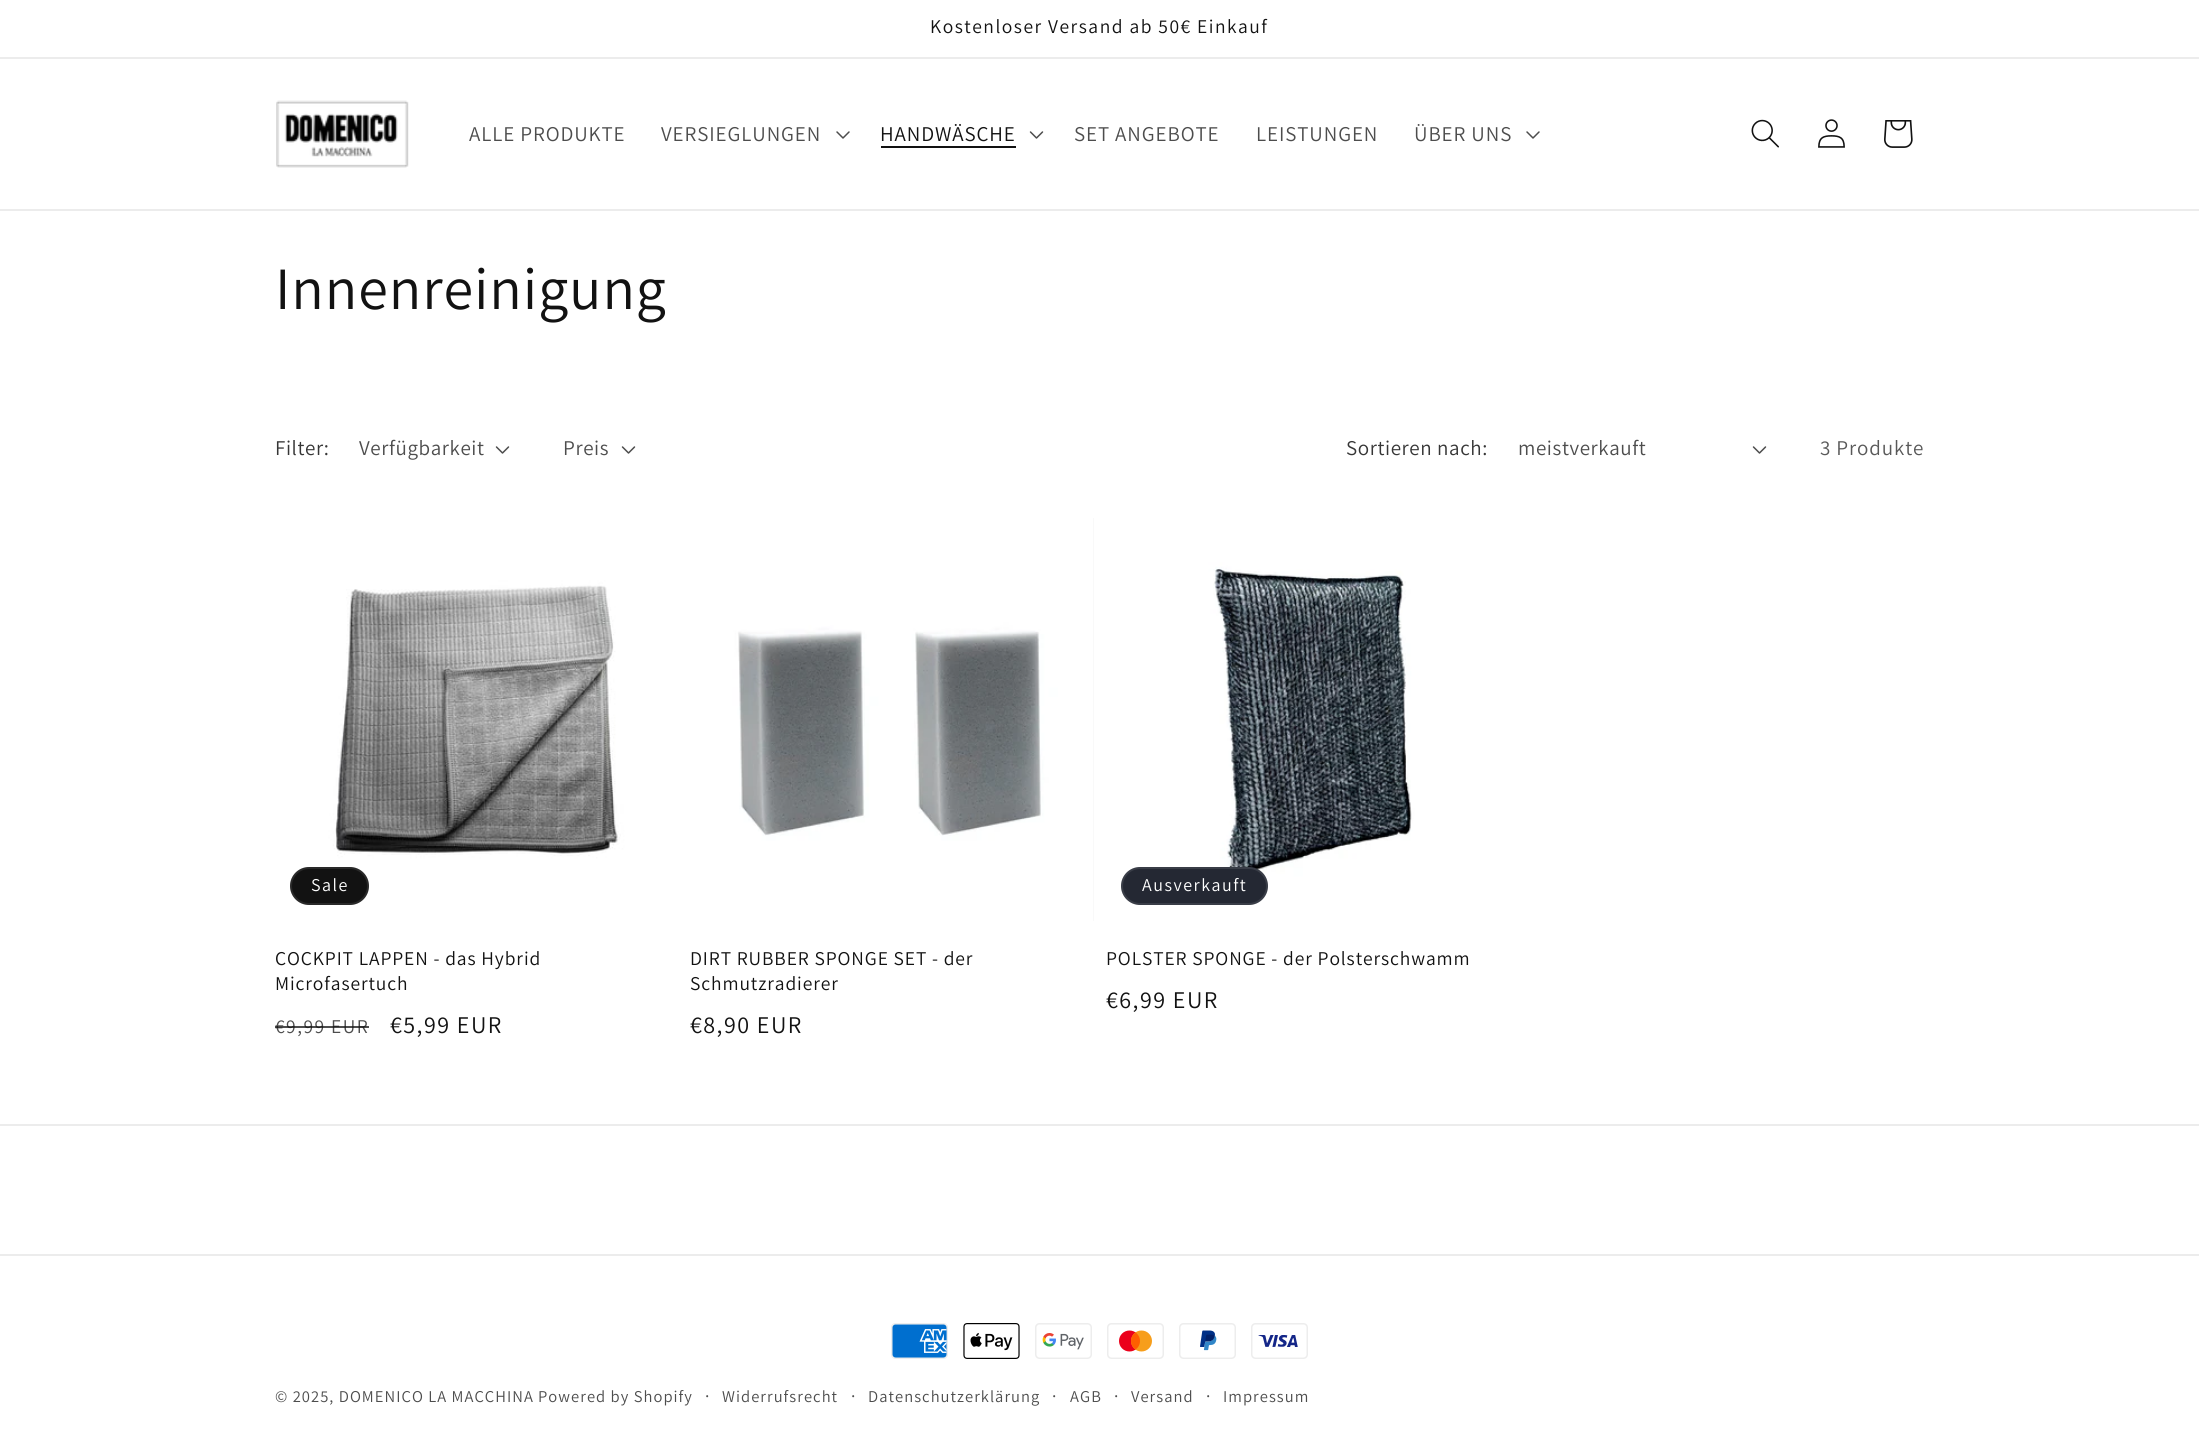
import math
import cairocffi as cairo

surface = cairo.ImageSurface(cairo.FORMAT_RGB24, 2199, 1440)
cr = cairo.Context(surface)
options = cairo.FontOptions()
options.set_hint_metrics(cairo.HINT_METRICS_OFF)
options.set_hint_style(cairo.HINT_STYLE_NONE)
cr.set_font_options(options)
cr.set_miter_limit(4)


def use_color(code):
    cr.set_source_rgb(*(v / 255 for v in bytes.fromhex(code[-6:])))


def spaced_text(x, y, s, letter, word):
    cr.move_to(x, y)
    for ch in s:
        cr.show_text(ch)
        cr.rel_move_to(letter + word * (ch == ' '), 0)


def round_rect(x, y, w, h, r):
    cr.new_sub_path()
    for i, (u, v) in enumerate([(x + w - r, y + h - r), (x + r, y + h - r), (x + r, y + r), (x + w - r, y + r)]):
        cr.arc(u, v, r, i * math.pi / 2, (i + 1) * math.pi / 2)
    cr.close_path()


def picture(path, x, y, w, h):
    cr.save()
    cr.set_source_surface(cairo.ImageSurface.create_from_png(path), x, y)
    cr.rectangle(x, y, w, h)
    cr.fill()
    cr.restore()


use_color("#ffffff")
cr.paint()
use_color("#ececec")
cr.rectangle(0, 57, 2199, 2)
cr.fill()
cr.select_font_face("Assistant")
cr.set_font_size(19.5)
use_color("#121212")
spaced_text(930, 33, "Kostenloser Versand ab 50€ Einkauf", 1.5, 0)
use_color("#ececec")
cr.rectangle(0, 209, 2199, 2)
cr.fill()
picture("img1.png", 276, 100, 133, 68)
cr.set_font_size(21)
use_color("#4d4d4d")
spaced_text(469, 141, "ALLE PRODUKTE", 0.9, 0)
spaced_text(661, 141, "VERSIEGLUNGEN", 0.9, 0)
picture("img2.png", 836, 131, 14, 8)
use_color("#121212")
spaced_text(880, 141, "HANDWÄSCHE", 0.9, 0)
cr.rectangle(881, 146, 135, 2)
cr.fill()
picture("img3.png", 1029, 131, 15, 8)
use_color("#4d4d4d")
spaced_text(1074, 141, "SET ANGEBOTE", 0.9, 0)
spaced_text(1256, 141, "LEISTUNGEN", 0.9, 0)
spaced_text(1414, 141, "ÜBER UNS", 0.9, 0)
picture("img2.png", 1526, 131, 14, 8)
picture("img4.png", 1751, 119, 28, 29)
picture("img5.png", 1818, 119, 27, 29)
picture("img6.png", 1884, 120, 29, 28)
cr.set_font_size(60)
use_color("#121212")
spaced_text(275, 309, "Innenreinigung", 0.9, 0)
cr.set_font_size(21)
use_color("#363636")
spaced_text(275, 455, "Filter:", 0.6, 0)
use_color("#4d4d4d")
spaced_text(359, 455, "Verfügbarkeit", 0.6, 0)
picture("img3.png", 495, 446, 15, 8)
spaced_text(563, 455, "Preis", 0.6, 0)
picture("img3.png", 621, 446, 15, 8)
use_color("#363636")
spaced_text(1346, 455, "Sortieren nach:", 0.6, 0)
use_color("#4d4d4d")
spaced_text(1518, 455, "meistverkauft", 0.6, 0)
picture("img3.png", 1752, 446, 15, 8)
use_color("#595959")
spaced_text(1820, 455, "3 Produkte", 0.9, 0)
picture("img7.png", 275, 518, 403, 403)
use_color("#121212")
round_rect(290, 867, 79, 38, 19)
cr.fill()
round_rect(291, 868, 77, 36, 18)
cr.set_source_rgba(1, 1, 1, 0.1)
cr.stroke()
cr.set_font_size(18)
use_color("#ffffff")
spaced_text(311, 891, "Sale", 1.5, 0)
cr.set_font_size(19.5)
use_color("#121212")
spaced_text(275, 965, "COCKPIT LAPPEN - das Hybrid", 0.9, 0)
spaced_text(275, 990, "Microfasertuch", 0.9, 0)
use_color("#4d4d4d")
spaced_text(275, 1033, "€9,99 EUR", 1.5, 0)
cr.set_source_rgba(0.071, 0.071, 0.071, 0.75)
cr.rectangle(275, 1026, 94, 2)
cr.fill()
cr.set_font_size(24)
use_color("#121212")
spaced_text(390, 1033, "€5,99 EUR", 1.5, 0)
use_color("#f3f3f3")
cr.rectangle(1093, 518, 1, 403)
cr.fill()
picture("img8.png", 690, 518, 404, 403)
cr.set_font_size(19.5)
use_color("#121212")
spaced_text(690, 965, "DIRT RUBBER SPONGE SET - der", 0.9, 0)
spaced_text(690, 990, "Schmutzradierer", 0.9, 0)
cr.set_font_size(24)
spaced_text(690, 1033, "€8,90 EUR", 1.5, 0)
picture("img9.png", 1106, 518, 403, 403)
use_color("#242833")
round_rect(1121, 867, 147, 38, 19)
cr.fill()
round_rect(1122, 868, 145, 36, 18)
cr.set_source_rgba(1, 1, 1, 0.1)
cr.stroke()
cr.set_font_size(18)
use_color("#ffffff")
spaced_text(1142, 891, "Ausverkauft", 1.5, 0)
cr.set_font_size(19.5)
use_color("#121212")
spaced_text(1106, 965, "POLSTER SPONGE - der Polsterschwamm", 0.9, 0)
cr.set_font_size(24)
spaced_text(1106, 1008, "€6,99 EUR", 1.5, 0)
use_color("#ececec")
cr.rectangle(0, 1124, 2199, 2)
cr.fill()
cr.rectangle(0, 1254, 2199, 2)
cr.fill()
picture("img10.png", 891, 1323, 57, 36)
picture("img11.png", 963, 1323, 57, 36)
picture("img12.png", 1035, 1323, 57, 36)
picture("img13.png", 1107, 1323, 57, 36)
picture("img14.png", 1179, 1323, 57, 36)
picture("img15.png", 1251, 1323, 57, 36)
cr.set_font_size(16.5)
use_color("#4d4d4d")
spaced_text(275, 1402, "© 2025, DOMENICO LA MACCHINA", 1.05, 0)
spaced_text(538, 1402, "Powered by Shopify", 1.05, 0)
cr.set_font_size(18)
spaced_text(705, 1402, "·", 1.05, 0)
cr.set_font_size(16.5)
spaced_text(722, 1402, "Widerrufsrecht", 1.05, 0)
cr.set_font_size(18)
spaced_text(851, 1402, "·", 1.05, 0)
cr.set_font_size(16.5)
spaced_text(868, 1402, "Datenschutzerklärung", 1.05, 0)
cr.set_font_size(18)
spaced_text(1052, 1402, "·", 1.05, 0)
cr.set_font_size(16.5)
spaced_text(1070, 1402, "AGB", 1.05, 0)
cr.set_font_size(18)
spaced_text(1114, 1402, "·", 1.05, 0)
cr.set_font_size(16.5)
spaced_text(1131, 1402, "Versand", 1.05, 0)
cr.set_font_size(18)
spaced_text(1206, 1402, "·", 1.05, 0)
cr.set_font_size(16.5)
spaced_text(1223, 1402, "Impressum", 1.05, 0)
surface.write_to_png("result.png")
